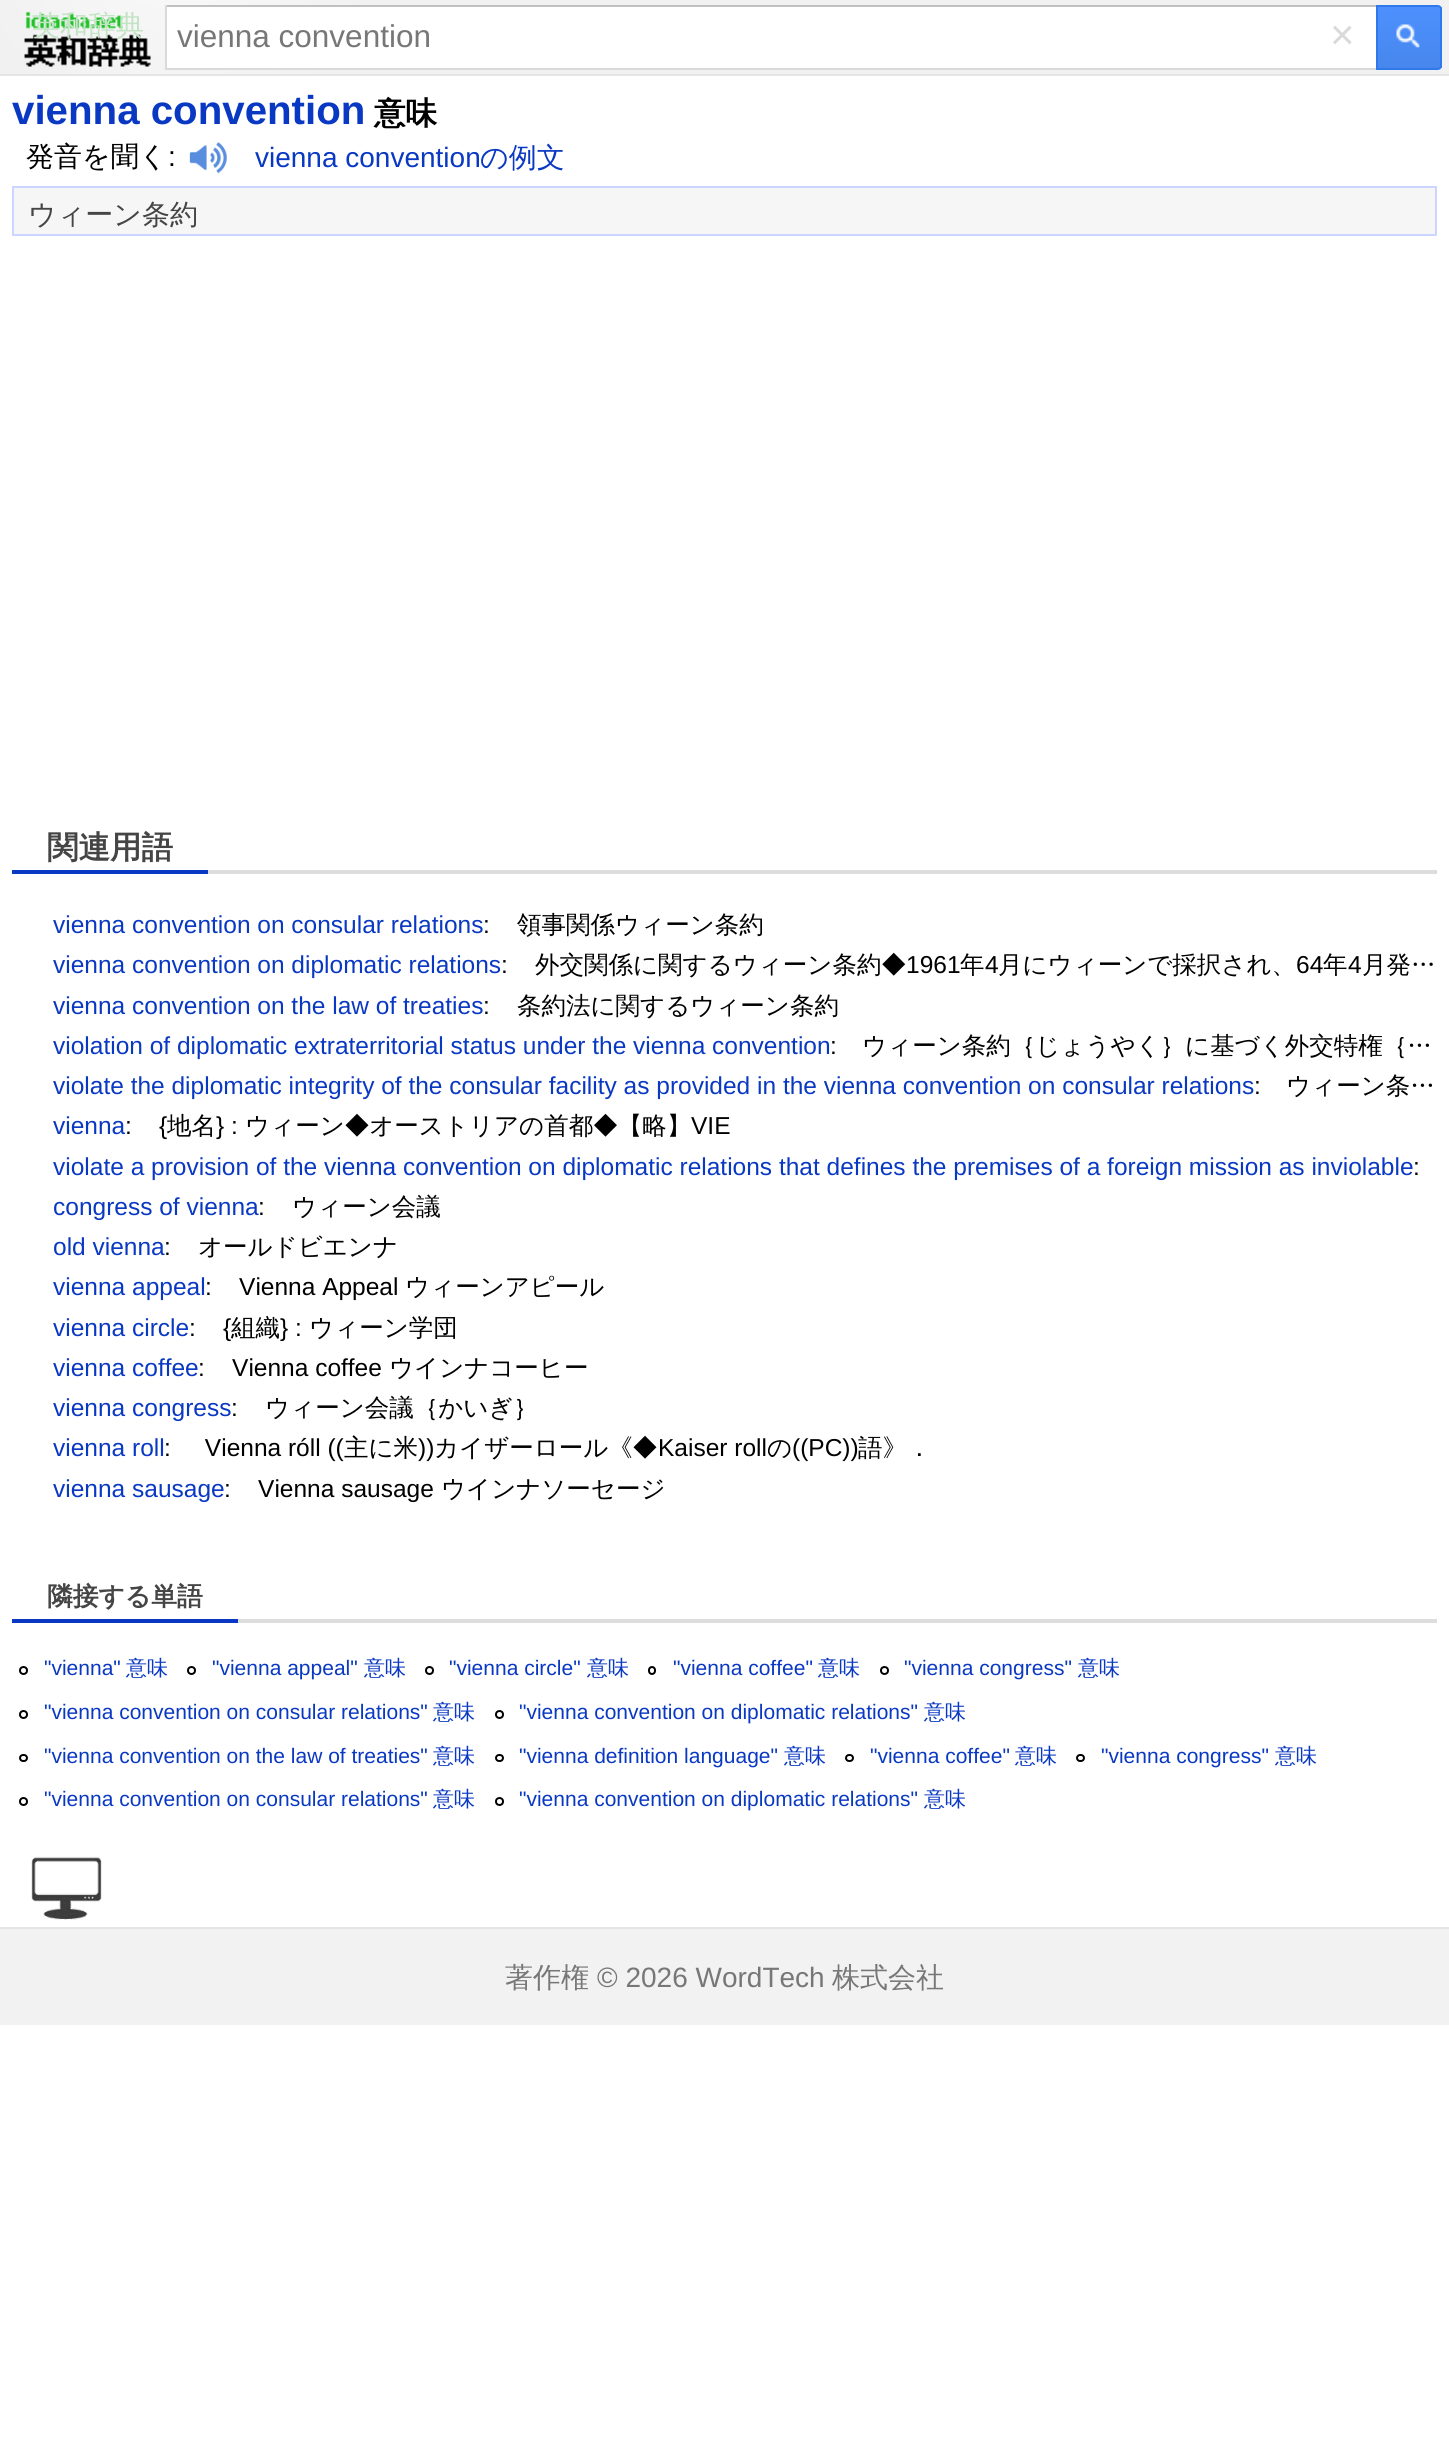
import math
import cairocffi as cairo

surface = cairo.ImageSurface(cairo.FORMAT_RGB24, 1449, 2440)
cr = cairo.Context(surface)
options = cairo.FontOptions()
options.set_hint_metrics(cairo.HINT_METRICS_OFF)
options.set_hint_style(cairo.HINT_STYLE_NONE)
cr.set_font_options(options)
cr.set_miter_limit(4)


def use_color(code):
    cr.set_source_rgb(*(v / 255 for v in bytes.fromhex(code[-6:])))


def spaced_text(x, y, s, letter, word):
    cr.move_to(x, y)
    for ch in s:
        cr.show_text(ch)
        cr.rel_move_to(letter + word * (ch == ' '), 0)


def round_rect(x, y, w, h, r):
    cr.new_sub_path()
    for i, (u, v) in enumerate([(x + w - r, y + h - r), (x + r, y + h - r), (x + r, y + r), (x + w - r, y + r)]):
        cr.arc(u, v, r, i * math.pi / 2, (i + 1) * math.pi / 2)
    cr.close_path()


def picture(path, x, y, w, h):
    cr.save()
    cr.set_source_surface(cairo.ImageSurface.create_from_png(path), x, y)
    cr.rectangle(x, y, w, h)
    cr.fill()
    cr.restore()


use_color("#ffffff")
cr.paint()
gradient = cairo.RadialGradient(175, -70, 0, 175, -70, 210)
gradient.add_color_stop_rgba(0, 0.98, 0.98, 0.98, 1)
gradient.add_color_stop_rgba(1, 0.945, 0.945, 0.945, 1)
cr.set_source(gradient)
cr.rectangle(0, 0, 1449, 74)
cr.fill()
use_color("#e5e5e5")
cr.rectangle(0, 74, 1449, 2)
cr.fill()
picture("img1.png", 24, 11, 127, 56)
cr.select_font_face("WenQuanYi Zen Hei Medium")
cr.set_font_size(28)
use_color("#c3e3c5")
cr.move_to(32, 35)
cr.show_text("英和辞典")
use_color("#ffffff")
cr.rectangle(167, 7, 1209, 61)
cr.fill()
use_color("#c0c0c0")
cr.rectangle(165, 5, 1211, 2)
cr.fill()
use_color("#d9d9d9")
cr.rectangle(165, 68, 1211, 2)
cr.fill()
cr.rectangle(165, 5, 2, 65)
cr.fill()
cr.select_font_face("Liberation Sans")
cr.set_font_size(31.5)
use_color("#777777")
cr.move_to(177, 47)
cr.show_text("vienna convention")
cr.set_font_size(42)
use_color("#d9d9d9")
cr.move_to(1330, 49)
cr.show_text("×")
gradient = cairo.LinearGradient(1377, 7, 1377, 68)
gradient.add_color_stop_rgba(0, 0.302, 0.565, 0.996, 1)
gradient.add_color_stop_rgba(1, 0.278, 0.529, 0.929, 1)
cr.set_source(gradient)
cr.rectangle(1378, 7, 64, 61)
cr.fill()
cr.new_path()
cr.move_to(1377, 6)
cr.line_to(1438, 6)
cr.curve_to(1439.5, 6, 1441, 7.5, 1441, 9)
cr.line_to(1441, 66)
cr.curve_to(1441, 67.5, 1439.5, 69, 1438, 69)
cr.line_to(1377, 69)
cr.close_path()
use_color("#3079ed")
cr.stroke()
picture("img2.png", 1396, 24, 24, 24)
cr.select_font_face("Liberation Sans", cairo.FONT_SLANT_NORMAL, cairo.FONT_WEIGHT_BOLD)
cr.set_font_size(40.25)
use_color("#0938c2")
cr.move_to(12, 124)
cr.show_text("vienna convention")
cr.select_font_face("WenQuanYi Zen Hei", cairo.FONT_SLANT_NORMAL, cairo.FONT_WEIGHT_BOLD)
cr.set_font_size(31.5)
use_color("#000000")
cr.move_to(374, 124)
cr.show_text("意味")
cr.select_font_face("WenQuanYi Zen Hei Medium")
cr.set_font_size(28)
cr.move_to(26, 166)
cr.show_text("発音を聞く")
cr.select_font_face("Liberation Sans")
cr.move_to(168, 166)
cr.show_text(":")
picture("img3.png", 189, 141, 38, 33)
use_color("#0938c2")
cr.move_to(255, 167)
cr.show_text("vienna convention")
cr.select_font_face("WenQuanYi Zen Hei Medium")
cr.move_to(480, 167)
cr.show_text("の例文")
use_color("#f6f6f6")
cr.rectangle(13, 187, 1423, 48)
cr.fill_preserve()
use_color("#ccd5ff")
cr.stroke()
use_color("#454545")
cr.move_to(28, 224)
cr.show_text("ウィーン条約")
use_color("#dddddd")
cr.rectangle(208, 870, 1229, 4)
cr.fill()
use_color("#0938c2")
cr.rectangle(12, 870, 196, 4)
cr.fill()
cr.select_font_face("WenQuanYi Zen Hei", cairo.FONT_SLANT_NORMAL, cairo.FONT_WEIGHT_BOLD)
cr.set_font_size(31.5)
use_color("#454545")
cr.move_to(47, 858)
cr.show_text("関連用語")
cr.select_font_face("Liberation Sans")
cr.set_font_size(24.5)
use_color("#0938c2")
cr.move_to(53, 933)
cr.show_text("vienna convention on consular relations")
use_color("#000000")
cr.move_to(483, 933)
cr.show_text(":")
cr.select_font_face("WenQuanYi Zen Hei Medium")
cr.move_to(517, 933)
cr.show_text("領事関係ウィーン条約")
cr.select_font_face("Liberation Sans")
use_color("#0938c2")
cr.move_to(53, 973)
cr.show_text("vienna convention on diplomatic relations")
use_color("#000000")
cr.move_to(501, 973)
cr.show_text(":")
cr.select_font_face("WenQuanYi Zen Hei Medium")
cr.move_to(535, 973)
cr.show_text("外交関係に関するウィーン条約◆")
cr.select_font_face("Liberation Sans")
cr.move_to(906, 973)
cr.show_text("1961")
cr.select_font_face("WenQuanYi Zen Hei Medium")
cr.move_to(960, 973)
cr.show_text("年")
cr.select_font_face("Liberation Sans")
cr.move_to(985, 973)
cr.show_text("4")
cr.select_font_face("WenQuanYi Zen Hei Medium")
cr.move_to(998, 973)
cr.show_text("月にウィーンで採択され、")
cr.select_font_face("Liberation Sans")
cr.move_to(1296, 973)
cr.show_text("64")
cr.select_font_face("WenQuanYi Zen Hei Medium")
cr.move_to(1323, 973)
cr.show_text("年")
cr.select_font_face("Liberation Sans")
cr.move_to(1348, 973)
cr.show_text("4")
cr.select_font_face("WenQuanYi Zen Hei Medium")
cr.move_to(1362, 973)
cr.show_text("月発…")
cr.select_font_face("Liberation Sans")
use_color("#0938c2")
cr.move_to(53, 1014)
cr.show_text("vienna convention on the law of treaties")
use_color("#000000")
cr.move_to(483, 1014)
cr.show_text(":")
cr.select_font_face("WenQuanYi Zen Hei Medium")
cr.move_to(517, 1014)
cr.show_text("条約法に関するウィーン条約")
cr.select_font_face("Liberation Sans")
use_color("#0938c2")
cr.move_to(53, 1054)
cr.show_text("violation of diplomatic extraterritorial status under the vienna convention")
use_color("#000000")
cr.move_to(830, 1054)
cr.show_text(":")
cr.select_font_face("WenQuanYi Zen Hei Medium")
spaced_text(862, 1054, "ウィーン条約｛じょうやく｝に基づく外交特権｛…", 0, -1)
cr.select_font_face("Liberation Sans")
use_color("#0938c2")
cr.move_to(53, 1094)
cr.show_text("violate the diplomatic integrity of the consular facility as provided in the vienna convention on consular relations")
use_color("#000000")
cr.move_to(1254, 1094)
cr.show_text(":")
cr.select_font_face("WenQuanYi Zen Hei Medium")
spaced_text(1286, 1094, "ウィーン条…", 0, -1)
cr.select_font_face("Liberation Sans")
use_color("#0938c2")
cr.move_to(53, 1134)
cr.show_text("vienna")
use_color("#000000")
cr.move_to(125, 1134)
cr.show_text(":    {")
cr.select_font_face("WenQuanYi Zen Hei Medium")
cr.move_to(167, 1134)
cr.show_text("地名")
cr.select_font_face("Liberation Sans")
cr.move_to(216, 1134)
cr.show_text("} :")
cr.select_font_face("WenQuanYi Zen Hei Medium")
cr.move_to(245, 1134)
cr.show_text("ウィーン◆オーストリアの首都◆【略】")
cr.select_font_face("Liberation Sans")
cr.move_to(691, 1134)
cr.show_text("VIE")
use_color("#0938c2")
cr.move_to(53, 1175)
cr.show_text("violate a provision of the vienna convention on diplomatic relations that defines the premises of a foreign mission as inviolable")
use_color("#000000")
cr.move_to(1413, 1175)
cr.show_text(":")
use_color("#0938c2")
cr.move_to(53, 1215)
cr.show_text("congress of vienna")
use_color("#000000")
cr.move_to(258, 1215)
cr.show_text(":")
cr.select_font_face("WenQuanYi Zen Hei Medium")
cr.move_to(292, 1215)
cr.show_text("ウィーン会議")
cr.select_font_face("Liberation Sans")
use_color("#0938c2")
cr.move_to(53, 1255)
cr.show_text("old vienna")
use_color("#000000")
cr.move_to(164, 1255)
cr.show_text(":")
cr.select_font_face("WenQuanYi Zen Hei Medium")
cr.move_to(198, 1255)
cr.show_text("オールドビエンナ")
cr.select_font_face("Liberation Sans")
use_color("#0938c2")
cr.move_to(53, 1295)
cr.show_text("vienna appeal")
use_color("#000000")
cr.move_to(205, 1295)
cr.show_text(":    Vienna Appeal")
cr.select_font_face("WenQuanYi Zen Hei Medium")
cr.move_to(405, 1295)
cr.show_text("ウィーンアピール")
cr.select_font_face("Liberation Sans")
use_color("#0938c2")
cr.move_to(53, 1336)
cr.show_text("vienna circle")
use_color("#000000")
cr.move_to(189, 1336)
cr.show_text(":    {")
cr.select_font_face("WenQuanYi Zen Hei Medium")
cr.move_to(231, 1336)
cr.show_text("組織")
cr.select_font_face("Liberation Sans")
cr.move_to(280, 1336)
cr.show_text("} :")
cr.select_font_face("WenQuanYi Zen Hei Medium")
cr.move_to(309, 1336)
cr.show_text("ウィーン学団")
cr.select_font_face("Liberation Sans")
use_color("#0938c2")
cr.move_to(53, 1376)
cr.show_text("vienna coffee")
use_color("#000000")
cr.move_to(198, 1376)
cr.show_text(":    Vienna coffee")
cr.select_font_face("WenQuanYi Zen Hei Medium")
cr.move_to(389, 1376)
cr.show_text("ウインナコーヒー")
cr.select_font_face("Liberation Sans")
use_color("#0938c2")
cr.move_to(53, 1416)
cr.show_text("vienna congress")
use_color("#000000")
cr.move_to(231, 1416)
cr.show_text(":")
cr.select_font_face("WenQuanYi Zen Hei Medium")
cr.move_to(265, 1416)
cr.show_text("ウィーン会議｛かいぎ｝")
cr.select_font_face("Liberation Sans")
use_color("#0938c2")
cr.move_to(53, 1456)
cr.show_text("vienna roll")
use_color("#000000")
cr.move_to(164, 1456)
cr.show_text(":     Vienna róll ((")
cr.select_font_face("WenQuanYi Zen Hei Medium")
cr.move_to(344, 1456)
cr.show_text("主に米")
cr.select_font_face("Liberation Sans")
cr.move_to(418, 1456)
cr.show_text("))")
cr.select_font_face("WenQuanYi Zen Hei Medium")
cr.move_to(434, 1456)
cr.show_text("カイザーロール《◆")
cr.select_font_face("Liberation Sans")
cr.move_to(658, 1456)
cr.show_text("Kaiser roll")
cr.select_font_face("WenQuanYi Zen Hei Medium")
cr.move_to(767, 1456)
cr.show_text("の")
cr.select_font_face("Liberation Sans")
cr.move_to(792, 1456)
cr.show_text("((PC))")
cr.select_font_face("WenQuanYi Zen Hei Medium")
cr.move_to(858, 1456)
cr.show_text("語》．")
cr.select_font_face("Liberation Sans")
use_color("#0938c2")
cr.move_to(53, 1497)
cr.show_text("vienna sausage")
use_color("#000000")
cr.move_to(224, 1497)
cr.show_text(":    Vienna sausage")
cr.select_font_face("WenQuanYi Zen Hei Medium")
cr.move_to(441, 1497)
cr.show_text("ウインナソーセージ")
use_color("#dddddd")
cr.rectangle(238, 1619, 1199, 4)
cr.fill()
use_color("#0938c2")
cr.rectangle(12, 1619, 226, 4)
cr.fill()
cr.select_font_face("WenQuanYi Zen Hei", cairo.FONT_SLANT_NORMAL, cairo.FONT_WEIGHT_BOLD)
cr.set_font_size(25.75)
use_color("#454545")
cr.move_to(47, 1605)
cr.show_text("隣接する単語")
cr.new_path()
cr.arc(23.5, 1670.5, 3.5, 0, 2 * math.pi)
use_color("#000000")
cr.stroke()
cr.select_font_face("Liberation Sans")
cr.set_font_size(21)
use_color("#0938c2")
cr.move_to(44, 1675)
cr.show_text("\"vienna\"")
cr.select_font_face("WenQuanYi Zen Hei Medium")
cr.move_to(126, 1675)
cr.show_text("意味")
cr.new_path()
cr.arc(191.5, 1670.5, 3.5, 0, 2 * math.pi)
use_color("#000000")
cr.stroke()
cr.select_font_face("Liberation Sans")
use_color("#0938c2")
cr.move_to(212, 1675)
cr.show_text("\"vienna appeal\"")
cr.select_font_face("WenQuanYi Zen Hei Medium")
cr.move_to(364, 1675)
cr.show_text("意味")
cr.new_path()
cr.arc(429.5, 1670.5, 3.5, 0, 2 * math.pi)
use_color("#000000")
cr.stroke()
cr.select_font_face("Liberation Sans")
use_color("#0938c2")
cr.move_to(449, 1675)
cr.show_text("\"vienna circle\"")
cr.select_font_face("WenQuanYi Zen Hei Medium")
cr.move_to(587, 1675)
cr.show_text("意味")
round_rect(649, 1667, 6, 7, 3)
use_color("#000000")
cr.stroke()
cr.select_font_face("Liberation Sans")
use_color("#0938c2")
cr.move_to(673, 1675)
cr.show_text("\"vienna coffee\"")
cr.select_font_face("WenQuanYi Zen Hei Medium")
cr.move_to(818, 1675)
cr.show_text("意味")
cr.new_path()
cr.arc(884.5, 1670.5, 3.5, 0, 2 * math.pi)
use_color("#000000")
cr.stroke()
cr.select_font_face("Liberation Sans")
use_color("#0938c2")
cr.move_to(904, 1675)
cr.show_text("\"vienna congress\"")
cr.select_font_face("WenQuanYi Zen Hei Medium")
cr.move_to(1078, 1675)
cr.show_text("意味")
cr.new_path()
cr.arc(23.5, 1714.5, 3.5, 0, 2 * math.pi)
use_color("#000000")
cr.stroke()
cr.select_font_face("Liberation Sans")
use_color("#0938c2")
cr.move_to(44, 1719)
cr.show_text("\"vienna convention on consular relations\"")
cr.select_font_face("WenQuanYi Zen Hei Medium")
cr.move_to(433, 1719)
cr.show_text("意味")
cr.new_path()
cr.arc(499.5, 1714.5, 3.5, 0, 2 * math.pi)
use_color("#000000")
cr.stroke()
cr.select_font_face("Liberation Sans")
use_color("#0938c2")
cr.move_to(519, 1719)
cr.show_text("\"vienna convention on diplomatic relations\"")
cr.select_font_face("WenQuanYi Zen Hei Medium")
cr.move_to(924, 1719)
cr.show_text("意味")
round_rect(20, 1755, 7, 6, 3)
use_color("#000000")
cr.stroke()
cr.select_font_face("Liberation Sans")
use_color("#0938c2")
cr.move_to(44, 1763)
cr.show_text("\"vienna convention on the law of treaties\"")
cr.select_font_face("WenQuanYi Zen Hei Medium")
cr.move_to(433, 1763)
cr.show_text("意味")
round_rect(496, 1755, 7, 6, 3)
use_color("#000000")
cr.stroke()
cr.select_font_face("Liberation Sans")
use_color("#0938c2")
cr.move_to(519, 1763)
cr.show_text("\"vienna definition language\"")
cr.select_font_face("WenQuanYi Zen Hei Medium")
cr.move_to(784, 1763)
cr.show_text("意味")
round_rect(846, 1755, 7, 6, 3)
use_color("#000000")
cr.stroke()
cr.select_font_face("Liberation Sans")
use_color("#0938c2")
cr.move_to(870, 1763)
cr.show_text("\"vienna coffee\"")
cr.select_font_face("WenQuanYi Zen Hei Medium")
cr.move_to(1015, 1763)
cr.show_text("意味")
round_rect(1077, 1755, 7, 6, 3)
use_color("#000000")
cr.stroke()
cr.select_font_face("Liberation Sans")
use_color("#0938c2")
cr.move_to(1101, 1763)
cr.show_text("\"vienna congress\"")
cr.select_font_face("WenQuanYi Zen Hei Medium")
cr.move_to(1275, 1763)
cr.show_text("意味")
cr.new_path()
cr.arc(23.5, 1801.5, 3.5, 0, 2 * math.pi)
use_color("#000000")
cr.stroke()
cr.select_font_face("Liberation Sans")
use_color("#0938c2")
cr.move_to(44, 1806)
cr.show_text("\"vienna convention on consular relations\"")
cr.select_font_face("WenQuanYi Zen Hei Medium")
cr.move_to(433, 1806)
cr.show_text("意味")
cr.new_path()
cr.arc(499.5, 1801.5, 3.5, 0, 2 * math.pi)
use_color("#000000")
cr.stroke()
cr.select_font_face("Liberation Sans")
use_color("#0938c2")
cr.move_to(519, 1806)
cr.show_text("\"vienna convention on diplomatic relations\"")
cr.select_font_face("WenQuanYi Zen Hei Medium")
cr.move_to(924, 1806)
cr.show_text("意味")
picture("img4.png", 31, 1856, 71, 64)
use_color("#f2f2f2")
cr.rectangle(0, 1929, 1449, 96)
cr.fill()
use_color("#e4e4e4")
cr.rectangle(0, 1927, 1449, 2)
cr.fill()
cr.set_font_size(28)
use_color("#777777")
cr.move_to(505, 1987)
cr.show_text("著作権")
cr.select_font_face("Liberation Sans")
cr.move_to(597, 1987)
cr.show_text("© 2026 WordTech")
cr.select_font_face("WenQuanYi Zen Hei Medium")
cr.move_to(832, 1987)
cr.show_text("株式会社")
surface.write_to_png("result.png")
